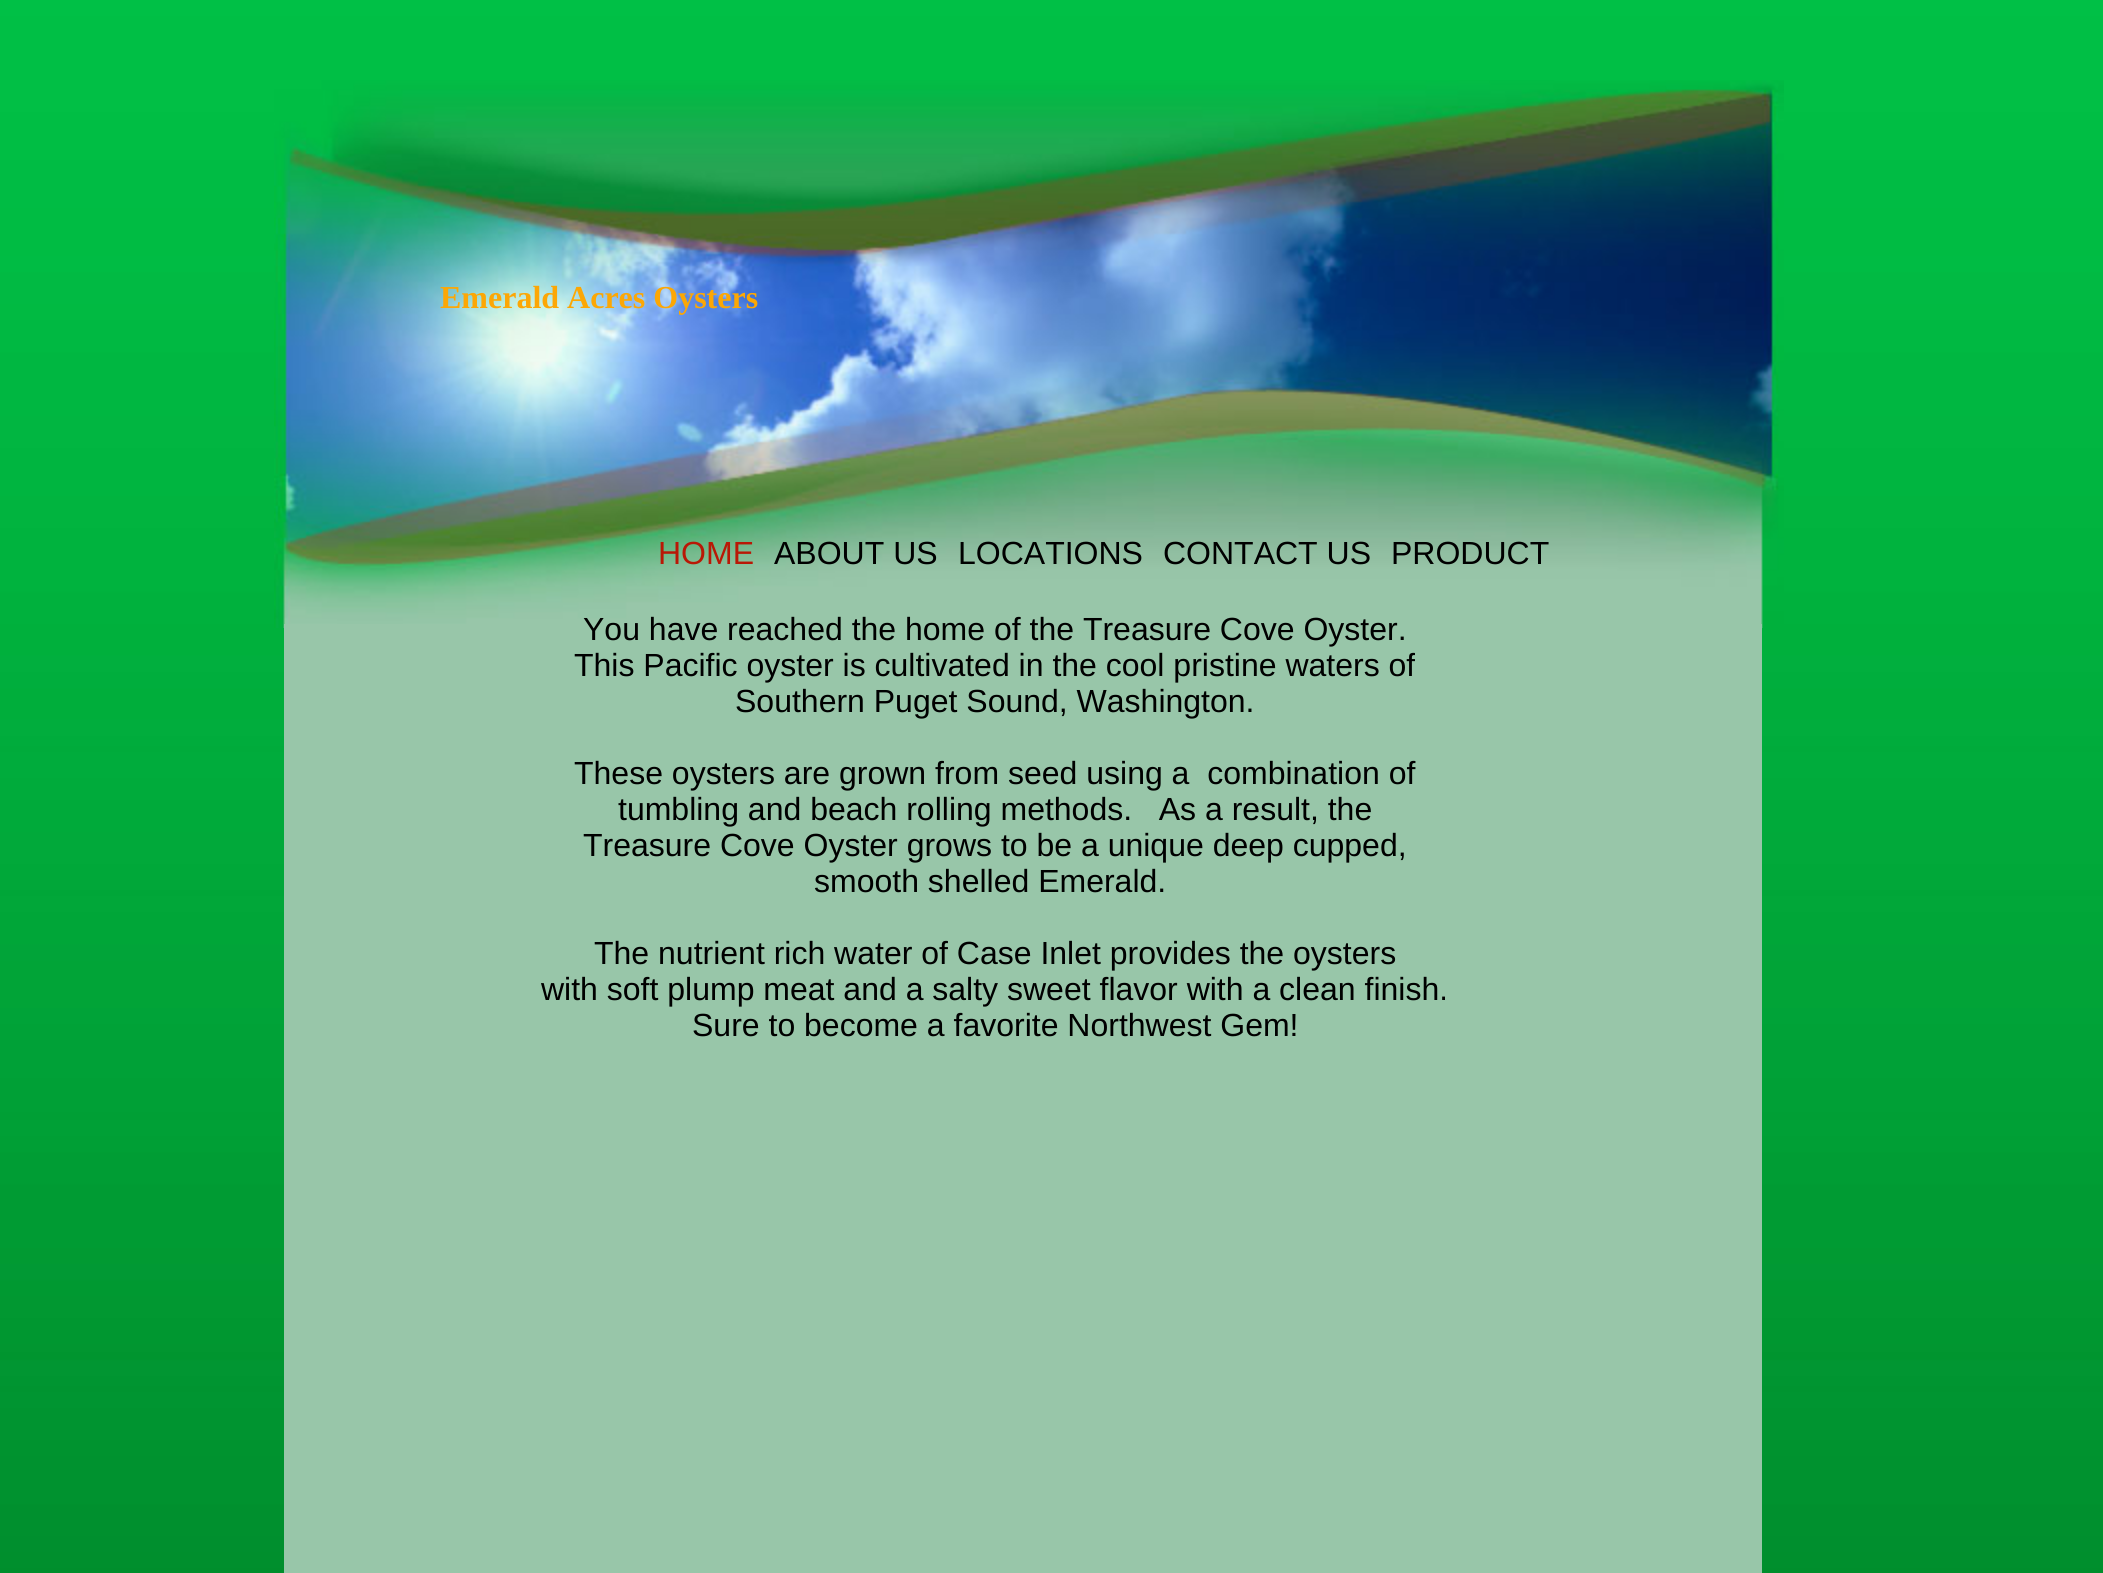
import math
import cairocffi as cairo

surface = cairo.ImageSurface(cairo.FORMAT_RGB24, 2103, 1573)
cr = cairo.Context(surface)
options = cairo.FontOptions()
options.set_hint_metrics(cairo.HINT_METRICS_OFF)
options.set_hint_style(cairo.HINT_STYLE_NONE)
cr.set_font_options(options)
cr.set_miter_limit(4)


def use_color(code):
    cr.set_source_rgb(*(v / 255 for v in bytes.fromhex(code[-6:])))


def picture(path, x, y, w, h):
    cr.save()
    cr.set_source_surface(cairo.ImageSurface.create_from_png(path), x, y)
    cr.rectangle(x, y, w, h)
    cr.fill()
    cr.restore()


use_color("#ffffff")
cr.paint()
picture("img1.png", 0, 0, 2103, 1573)
picture("img2.png", 274, 80, 1510, 548)
cr.select_font_face("Liberation Serif", cairo.FONT_SLANT_NORMAL, cairo.FONT_WEIGHT_BOLD)
cr.set_font_size(32)
use_color("#fca705")
cr.move_to(440, 308)
cr.show_text("Emerald Acres Oysters")
cr.select_font_face("Liberation Sans")
use_color("#b91806")
cr.move_to(658, 564)
cr.show_text("HOME")
use_color("#000000")
cr.move_to(774, 564)
cr.show_text("ABOUT US")
cr.move_to(958, 564)
cr.show_text("LOCATIONS")
cr.move_to(1163, 564)
cr.show_text("CONTACT US")
cr.move_to(1391, 564)
cr.show_text("PRODUCT")
use_color("#98c6a9")
cr.rectangle(284, 624, 1478, 949)
cr.fill()
use_color("#000000")
cr.move_to(583, 640)
cr.show_text("You have reached the home of the Treasure Cove Oyster.")
cr.move_to(574, 676)
cr.show_text("This Pacific oyster is cultivated in the cool pristine waters of")
cr.move_to(735, 712)
cr.show_text("Southern Puget Sound, Washington.")
cr.move_to(574, 784)
cr.show_text("These oysters are grown from seed using a  combination of")
cr.move_to(618, 820)
cr.show_text("tumbling and beach rolling methods.   As a result, the")
cr.move_to(583, 856)
cr.show_text("Treasure Cove Oyster grows to be a unique deep cupped,")
cr.move_to(814, 892)
cr.show_text("smooth shelled Emerald.")
cr.move_to(594, 964)
cr.show_text("The nutrient rich water of Case Inlet provides the oysters")
cr.move_to(541, 1000)
cr.show_text("with soft plump meat and a salty sweet flavor with a clean finish.")
cr.move_to(692, 1036)
cr.show_text("Sure to become a favorite Northwest Gem!")
surface.write_to_png("result.png")
